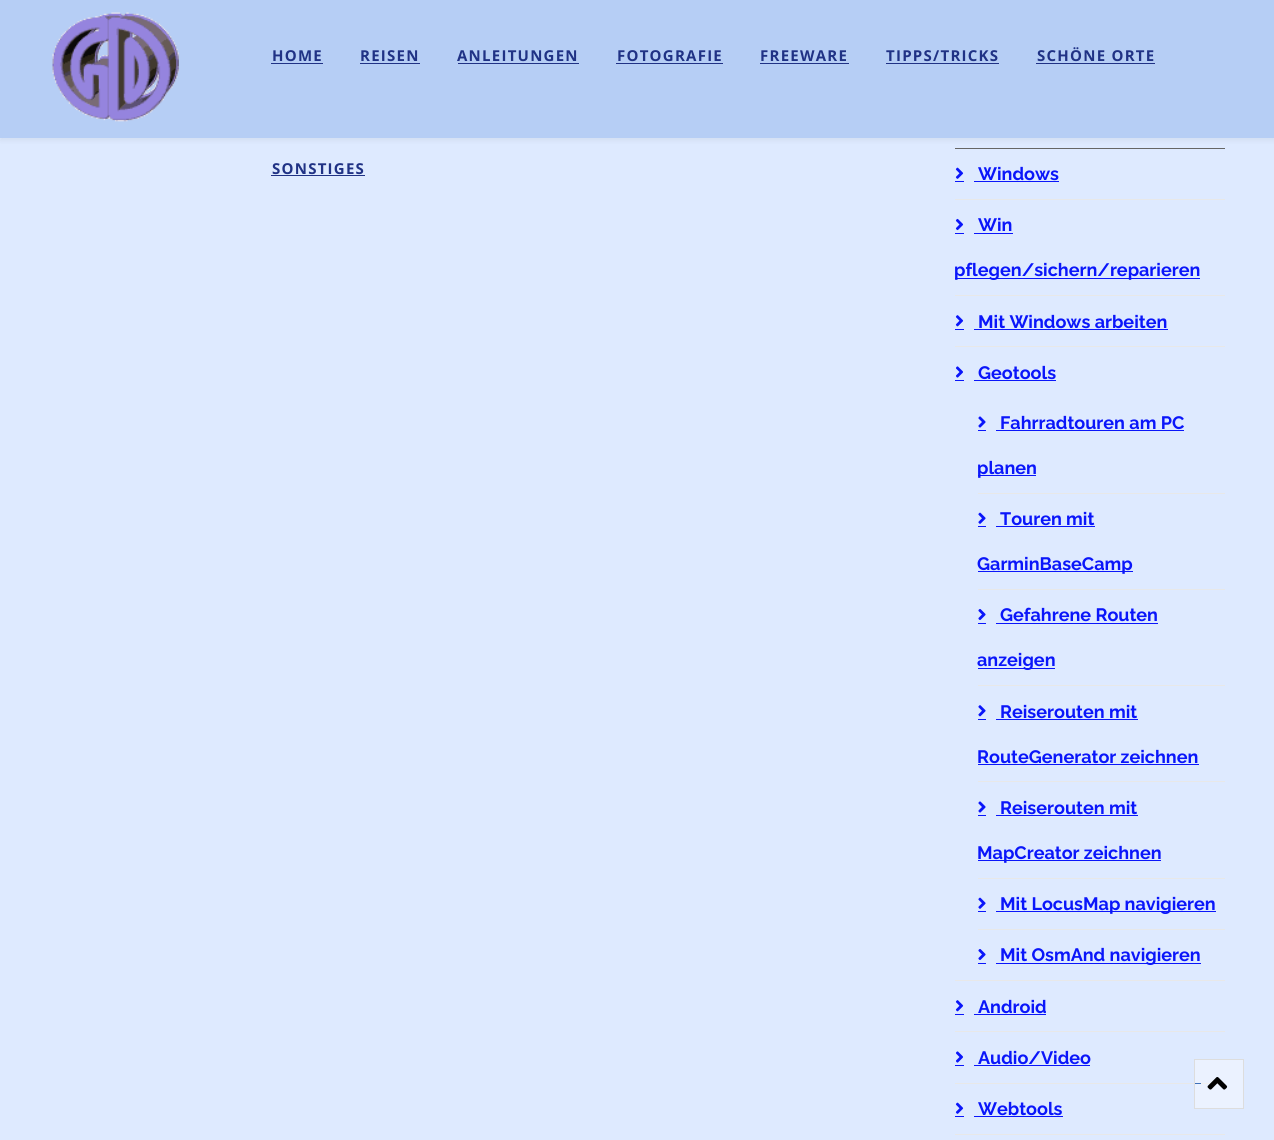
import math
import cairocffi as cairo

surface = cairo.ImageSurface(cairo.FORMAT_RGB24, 1274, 1140)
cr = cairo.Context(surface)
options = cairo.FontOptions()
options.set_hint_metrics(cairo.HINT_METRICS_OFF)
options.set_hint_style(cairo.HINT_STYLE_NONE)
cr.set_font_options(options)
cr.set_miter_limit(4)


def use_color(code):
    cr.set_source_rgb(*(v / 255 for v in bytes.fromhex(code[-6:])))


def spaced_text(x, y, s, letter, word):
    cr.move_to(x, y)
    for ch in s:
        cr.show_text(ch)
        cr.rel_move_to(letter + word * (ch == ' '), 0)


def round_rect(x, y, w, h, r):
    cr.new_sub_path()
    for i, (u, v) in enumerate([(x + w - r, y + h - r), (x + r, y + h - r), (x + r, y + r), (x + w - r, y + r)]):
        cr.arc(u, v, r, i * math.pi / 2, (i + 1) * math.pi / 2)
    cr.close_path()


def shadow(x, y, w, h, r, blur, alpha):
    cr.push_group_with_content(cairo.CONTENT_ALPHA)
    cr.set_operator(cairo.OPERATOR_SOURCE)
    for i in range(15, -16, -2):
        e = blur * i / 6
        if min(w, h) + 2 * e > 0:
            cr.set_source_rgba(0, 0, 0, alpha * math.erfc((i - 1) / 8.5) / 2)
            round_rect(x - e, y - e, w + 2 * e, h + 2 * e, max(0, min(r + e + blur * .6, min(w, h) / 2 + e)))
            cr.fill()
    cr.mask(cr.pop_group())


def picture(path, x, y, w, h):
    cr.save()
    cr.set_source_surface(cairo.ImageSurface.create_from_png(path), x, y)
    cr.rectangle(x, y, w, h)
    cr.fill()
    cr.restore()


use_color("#deeaff")
cr.paint()
use_color("#ebf2ff")
cr.rectangle(1195, 1060, 48, 48)
cr.fill()
use_color("#000000")
shadow(0, 4, 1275, 137, 0, 2, 0.05)
use_color("#b6cef5")
cr.rectangle(0, 0, 1274, 138)
cr.fill()
picture("img1.png", 52, 12, 127, 110)
cr.select_font_face("Open Sans", cairo.FONT_SLANT_NORMAL, cairo.FONT_WEIGHT_BOLD)
cr.set_font_size(15)
use_color("#203285")
spaced_text(272, 61, "HOME", 1.25, 0)
cr.rectangle(271, 63, 52, 1)
cr.fill()
spaced_text(360, 61, "REISEN", 1.25, 0)
cr.rectangle(360, 63, 60, 1)
cr.fill()
spaced_text(457, 61, "ANLEITUNGEN", 1.25, 0)
cr.rectangle(458, 63, 121, 1)
cr.fill()
spaced_text(617, 61, "FOTOGRAFIE", 1.25, 0)
cr.rectangle(616, 63, 107, 1)
cr.fill()
spaced_text(760, 61, "FREEWARE", 1.25, 0)
cr.rectangle(760, 63, 89, 1)
cr.fill()
spaced_text(886, 61, "TIPPS/TRICKS", 1.25, 0)
cr.rectangle(886, 63, 113, 1)
cr.fill()
spaced_text(1037, 61, "SCHÖNE ORTE", 1.25, 0)
cr.rectangle(1036, 63, 119, 1)
cr.fill()
spaced_text(272, 174, "SONSTIGES", 1.25, 0)
cr.rectangle(271, 175, 94, 1)
cr.fill()
use_color("#666666")
cr.rectangle(955, 148, 270, 1)
cr.fill()
use_color("#e8e8e8")
cr.rectangle(955, 199, 270, 1)
cr.fill()
picture("img2.png", 955, 167, 9, 12)
cr.select_font_face("Raleway", cairo.FONT_SLANT_NORMAL, cairo.FONT_WEIGHT_BOLD)
cr.set_font_size(18)
use_color("#0a16fa")
cr.move_to(978, 180)
cr.show_text("Windows")
cr.rectangle(974, 181, 85, 1)
cr.fill()
cr.rectangle(955, 181, 9, 1)
cr.fill()
use_color("#e8e8e8")
cr.rectangle(955, 295, 270, 1)
cr.fill()
picture("img3.png", 955, 218, 9, 13)
use_color("#0a16fa")
cr.move_to(978, 231)
cr.show_text("Win")
cr.rectangle(974, 233, 39, 1)
cr.fill()
cr.rectangle(955, 233, 9, 1)
cr.fill()
cr.rectangle(955, 278, 245, 1)
cr.fill()
cr.move_to(954, 276)
cr.show_text("pflegen/sichern/reparieren")
use_color("#e8e8e8")
cr.rectangle(955, 346, 270, 1)
cr.fill()
picture("img4.png", 955, 315, 9, 12)
use_color("#0a16fa")
cr.move_to(978, 328)
cr.show_text("Mit Windows arbeiten")
cr.rectangle(974, 329, 194, 1)
cr.fill()
cr.rectangle(955, 329, 9, 1)
cr.fill()
use_color("#e8e8e8")
cr.rectangle(955, 980, 270, 1)
cr.fill()
picture("img5.png", 956, 366, 7, 12)
use_color("#0a16fa")
cr.move_to(978, 379)
cr.show_text("Geotools")
cr.rectangle(974, 380, 82, 1)
cr.fill()
cr.rectangle(955, 380, 9, 1)
cr.fill()
use_color("#e8e8e8")
cr.rectangle(978, 493, 247, 1)
cr.fill()
picture("img6.png", 978, 416, 8, 12)
use_color("#0a16fa")
cr.move_to(1000, 429)
cr.show_text("Fahrradtouren am PC")
cr.rectangle(996, 430, 188, 1)
cr.fill()
cr.rectangle(978, 430, 8, 1)
cr.fill()
cr.rectangle(978, 475, 58, 1)
cr.fill()
cr.move_to(977, 474)
cr.show_text("planen")
use_color("#e8e8e8")
cr.rectangle(978, 589, 247, 1)
cr.fill()
picture("img7.png", 978, 512, 8, 12)
use_color("#0a16fa")
cr.move_to(1000, 525)
cr.show_text("Touren mit")
cr.rectangle(996, 526, 99, 1)
cr.fill()
cr.rectangle(978, 526, 8, 1)
cr.fill()
cr.rectangle(978, 571, 155, 1)
cr.fill()
cr.move_to(977, 570)
cr.show_text("GarminBaseCamp")
use_color("#e8e8e8")
cr.rectangle(978, 685, 247, 1)
cr.fill()
picture("img8.png", 978, 609, 8, 11)
use_color("#0a16fa")
cr.move_to(1000, 621)
cr.show_text("Gefahrene Routen")
cr.rectangle(996, 623, 162, 1)
cr.fill()
cr.rectangle(978, 623, 8, 1)
cr.fill()
cr.rectangle(978, 668, 77, 1)
cr.fill()
cr.move_to(977, 666)
cr.show_text("anzeigen")
use_color("#e8e8e8")
cr.rectangle(978, 781, 247, 1)
cr.fill()
picture("img9.png", 978, 705, 8, 12)
use_color("#0a16fa")
cr.move_to(1000, 718)
cr.show_text("Reiserouten mit")
cr.rectangle(996, 719, 142, 1)
cr.fill()
cr.rectangle(978, 719, 8, 1)
cr.fill()
cr.move_to(977, 763)
cr.show_text("RouteGenerator zeichnen")
cr.rectangle(978, 764, 221, 1)
cr.fill()
use_color("#e8e8e8")
cr.rectangle(978, 878, 247, 1)
cr.fill()
picture("img6.png", 978, 801, 8, 12)
use_color("#0a16fa")
cr.move_to(1000, 814)
cr.show_text("Reiserouten mit")
cr.rectangle(996, 815, 142, 1)
cr.fill()
cr.rectangle(978, 815, 8, 1)
cr.fill()
cr.rectangle(978, 860, 183, 1)
cr.fill()
cr.move_to(977, 859)
cr.show_text("MapCreator zeichnen")
use_color("#e8e8e8")
cr.rectangle(978, 929, 247, 1)
cr.fill()
picture("img7.png", 978, 897, 8, 12)
use_color("#0a16fa")
cr.rectangle(996, 911, 220, 1)
cr.fill()
cr.move_to(1000, 910)
cr.show_text("Mit LocusMap navigieren")
cr.rectangle(978, 911, 8, 1)
cr.fill()
picture("img8.png", 978, 949, 8, 11)
cr.rectangle(996, 963, 205, 1)
cr.fill()
cr.move_to(1000, 961)
cr.show_text("Mit OsmAnd navigieren")
cr.rectangle(978, 963, 8, 1)
cr.fill()
use_color("#e8e8e8")
cr.rectangle(955, 1031, 270, 1)
cr.fill()
picture("img4.png", 955, 1000, 9, 12)
use_color("#0a16fa")
cr.move_to(978, 1013)
cr.show_text("Android")
cr.rectangle(974, 1014, 72, 1)
cr.fill()
cr.rectangle(955, 1014, 9, 1)
cr.fill()
use_color("#e8e8e8")
cr.rectangle(955, 1083, 239, 1)
cr.fill()
use_color("#f1f1f1")
cr.rectangle(1194, 1083, 31, 1)
cr.fill()
picture("img5.png", 956, 1051, 7, 12)
use_color("#0a16fa")
cr.move_to(978, 1064)
cr.show_text("Audio/Video")
cr.rectangle(974, 1065, 116, 1)
cr.fill()
cr.rectangle(955, 1065, 9, 1)
cr.fill()
use_color("#e8e8e8")
cr.rectangle(955, 1134, 270, 1)
cr.fill()
picture("img2.png", 955, 1102, 9, 12)
use_color("#0a16fa")
cr.move_to(978, 1115)
cr.show_text("Webtools")
cr.rectangle(974, 1116, 89, 1)
cr.fill()
cr.rectangle(955, 1116, 9, 1)
cr.fill()
cr.rectangle(1194.5, 1059.5, 49, 49)
use_color("#dddddd")
cr.set_line_width(1)
cr.stroke()
use_color("#3f71b8")
cr.rectangle(1195, 1083, 6, 1)
cr.fill()
picture("img10.png", 1207, 1077, 21, 13)
surface.write_to_png("result.png")
